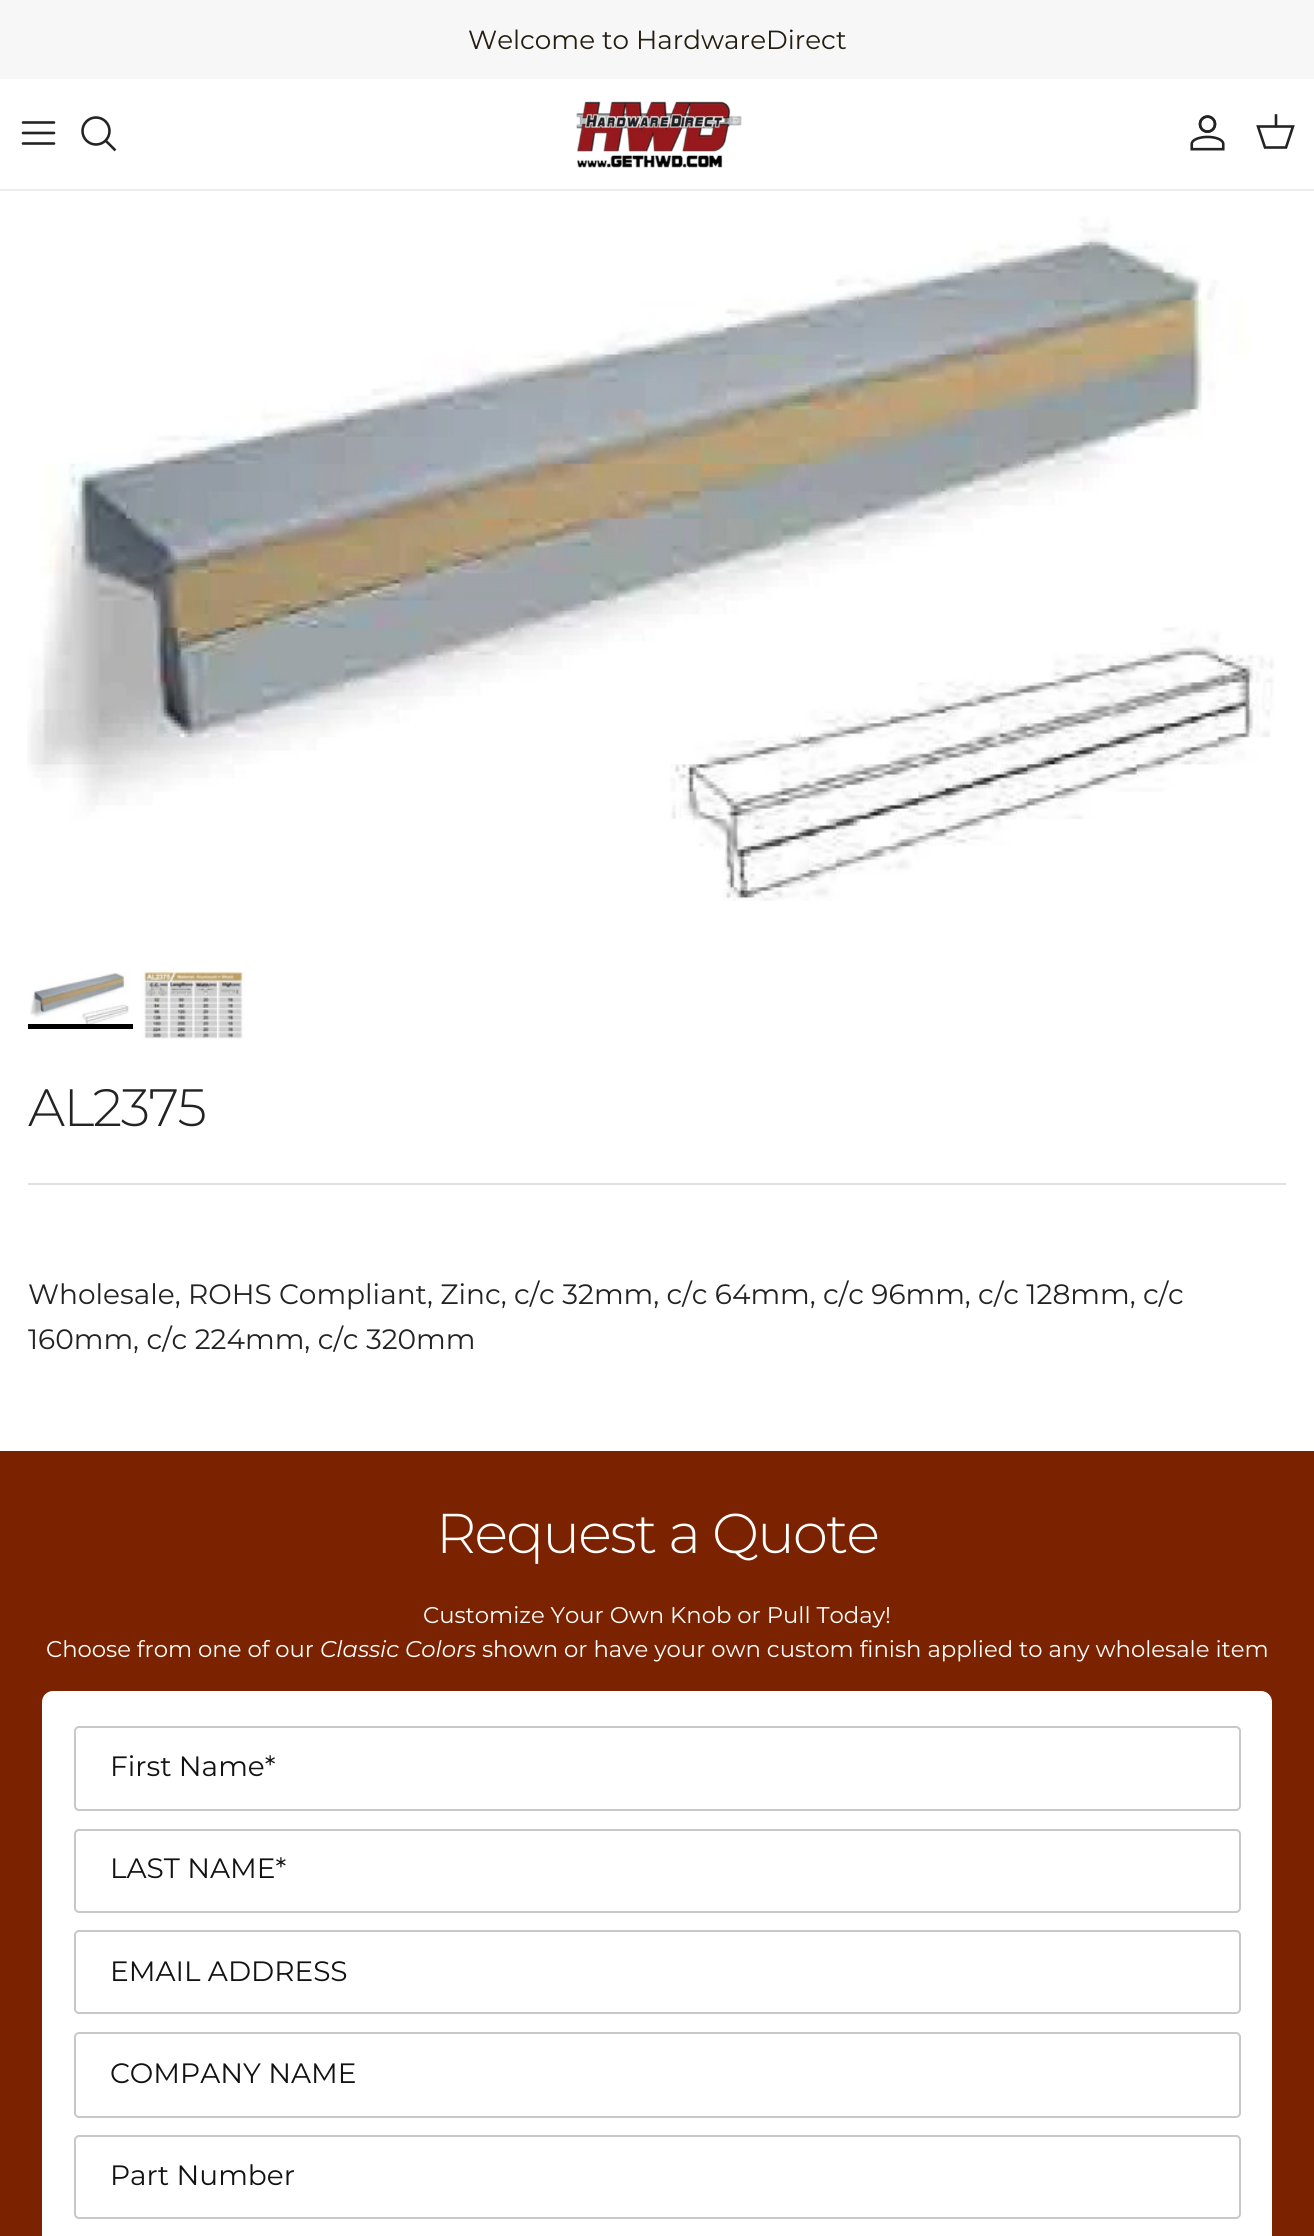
import math
import cairocffi as cairo

surface = cairo.ImageSurface(cairo.FORMAT_RGB24, 1314, 2236)
cr = cairo.Context(surface)
options = cairo.FontOptions()
options.set_hint_metrics(cairo.HINT_METRICS_OFF)
options.set_hint_style(cairo.HINT_STYLE_NONE)
cr.set_font_options(options)
cr.set_miter_limit(4)


def use_color(code):
    cr.set_source_rgb(*(v / 255 for v in bytes.fromhex(code[-6:])))


def spaced_text(x, y, s, letter, word):
    cr.move_to(x, y)
    for ch in s:
        cr.show_text(ch)
        cr.rel_move_to(letter + word * (ch == ' '), 0)


def round_rect(x, y, w, h, r):
    cr.new_sub_path()
    for i, (u, v) in enumerate([(x + w - r, y + h - r), (x + r, y + h - r), (x + r, y + r), (x + w - r, y + r)]):
        cr.arc(u, v, r, i * math.pi / 2, (i + 1) * math.pi / 2)
    cr.close_path()


def picture(path, x, y, w, h):
    cr.save()
    cr.set_source_surface(cairo.ImageSurface.create_from_png(path), x, y)
    cr.rectangle(x, y, w, h)
    cr.fill()
    cr.restore()


use_color("#ffffff")
cr.paint()
use_color("#f7f7f7")
cr.rectangle(0, 0, 1314, 79)
cr.fill()
cr.select_font_face("Montserrat")
cr.set_font_size(26.25)
use_color("#231e11")
cr.move_to(468, 49)
cr.show_text("Welcome to HardwareDirect")
use_color("#ececec")
cr.rectangle(0, 189, 1314, 2)
cr.fill()
cr.new_path()
cr.move_to(23, 133)
cr.line_to(54, 133)
cr.move_to(23, 122.5)
cr.line_to(54, 122.5)
cr.move_to(23, 143.5)
cr.line_to(54, 143.5)
use_color("#232323")
cr.set_line_width(2.6)
cr.set_line_cap(cairo.LINE_CAP_ROUND)
cr.set_line_join(cairo.LINE_JOIN_ROUND)
cr.stroke()
cr.arc(96, 131, 13.5, 0, 2 * math.pi)
cr.set_line_cap(cairo.LINE_CAP_BUTT)
cr.set_line_join(cairo.LINE_JOIN_MITER)
cr.stroke()
cr.new_path()
cr.move_to(106.5, 141.5)
cr.line_to(114.5, 149.5)
cr.set_line_cap(cairo.LINE_CAP_SQUARE)
cr.stroke()
picture("img1.png", 576, 101, 166, 67)
picture("img2.png", 1190, 115, 35, 36)
cr.new_path()
cr.move_to(1258, 126.5)
cr.line_to(1293, 126.5)
cr.line_to(1286, 147.5)
cr.line_to(1265, 147.5)
cr.close_path()
cr.set_line_cap(cairo.LINE_CAP_BUTT)
cr.stroke()
cr.new_path()
cr.move_to(1276, 126)
cr.line_to(1276, 115.5)
cr.set_line_cap(cairo.LINE_CAP_SQUARE)
cr.stroke()
picture("img3.png", 27, 216, 1248, 685)
picture("img4.png", 30, 972, 100, 52)
use_color("#000000")
cr.rectangle(28, 1024, 105, 5)
cr.fill()
picture("img5.png", 142, 970, 103, 70)
cr.select_font_face("Montserrat Light")
cr.set_font_size(52.5)
use_color("#232323")
spaced_text(28, 1126, "AL2375", -1.5, 0)
use_color("#e0e0e0")
cr.rectangle(28, 1183, 1258, 2)
cr.fill()
cr.select_font_face("Montserrat")
cr.set_font_size(28)
use_color("#232323")
cr.move_to(28, 1304)
cr.show_text("Wholesale, ROHS Compliant, Zinc, c/c 32mm, c/c 64mm, c/c 96mm, c/c 128mm, c/c")
cr.move_to(28, 1349)
cr.show_text("160mm, c/c 224mm, c/c 320mm")
use_color("#7b2300")
cr.rectangle(0, 1451, 1314, 785)
cr.fill()
cr.select_font_face("Montserrat Light")
cr.set_font_size(56)
use_color("#fefefe")
spaced_text(436, 1553, "Request a Quote", -1.7, 0)
cr.select_font_face("Montserrat")
cr.set_font_size(22.75)
cr.move_to(423, 1623)
cr.show_text("Customize Your Own Knob or Pull Today!")
cr.move_to(46, 1657)
cr.show_text("Choose from one of our")
cr.select_font_face("Montserrat", cairo.FONT_SLANT_ITALIC)
cr.move_to(320, 1657)
cr.show_text("Classic Colors")
cr.select_font_face("Montserrat")
cr.move_to(482, 1657)
cr.show_text("shown or have your own custom finish applied to any wholesale item")
use_color("#ffffff")
round_rect(42, 1691, 1230, 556, 11)
cr.fill()
round_rect(75, 1727, 1165, 83, 4)
use_color("#c8c8c8")
cr.set_line_width(2)
cr.set_line_cap(cairo.LINE_CAP_BUTT)
cr.stroke()
cr.set_font_size(28)
use_color("#121212")
cr.move_to(110, 1776)
cr.show_text("First Name*")
round_rect(75, 1830, 1165, 82, 4)
use_color("#c8c8c8")
cr.stroke()
use_color("#121212")
cr.move_to(110, 1878)
cr.show_text("LAST NAME*")
round_rect(75, 1931, 1165, 82, 4)
use_color("#c8c8c8")
cr.stroke()
use_color("#121212")
cr.move_to(110, 1981)
cr.show_text("EMAIL ADDRESS")
round_rect(75, 2033, 1165, 84, 4)
use_color("#c8c8c8")
cr.stroke()
use_color("#121212")
cr.move_to(110, 2083)
cr.show_text("COMPANY NAME")
round_rect(75, 2136, 1165, 82, 4)
use_color("#c8c8c8")
cr.stroke()
use_color("#121212")
cr.move_to(110, 2185)
cr.show_text("Part Number")
surface.write_to_png("result.png")
